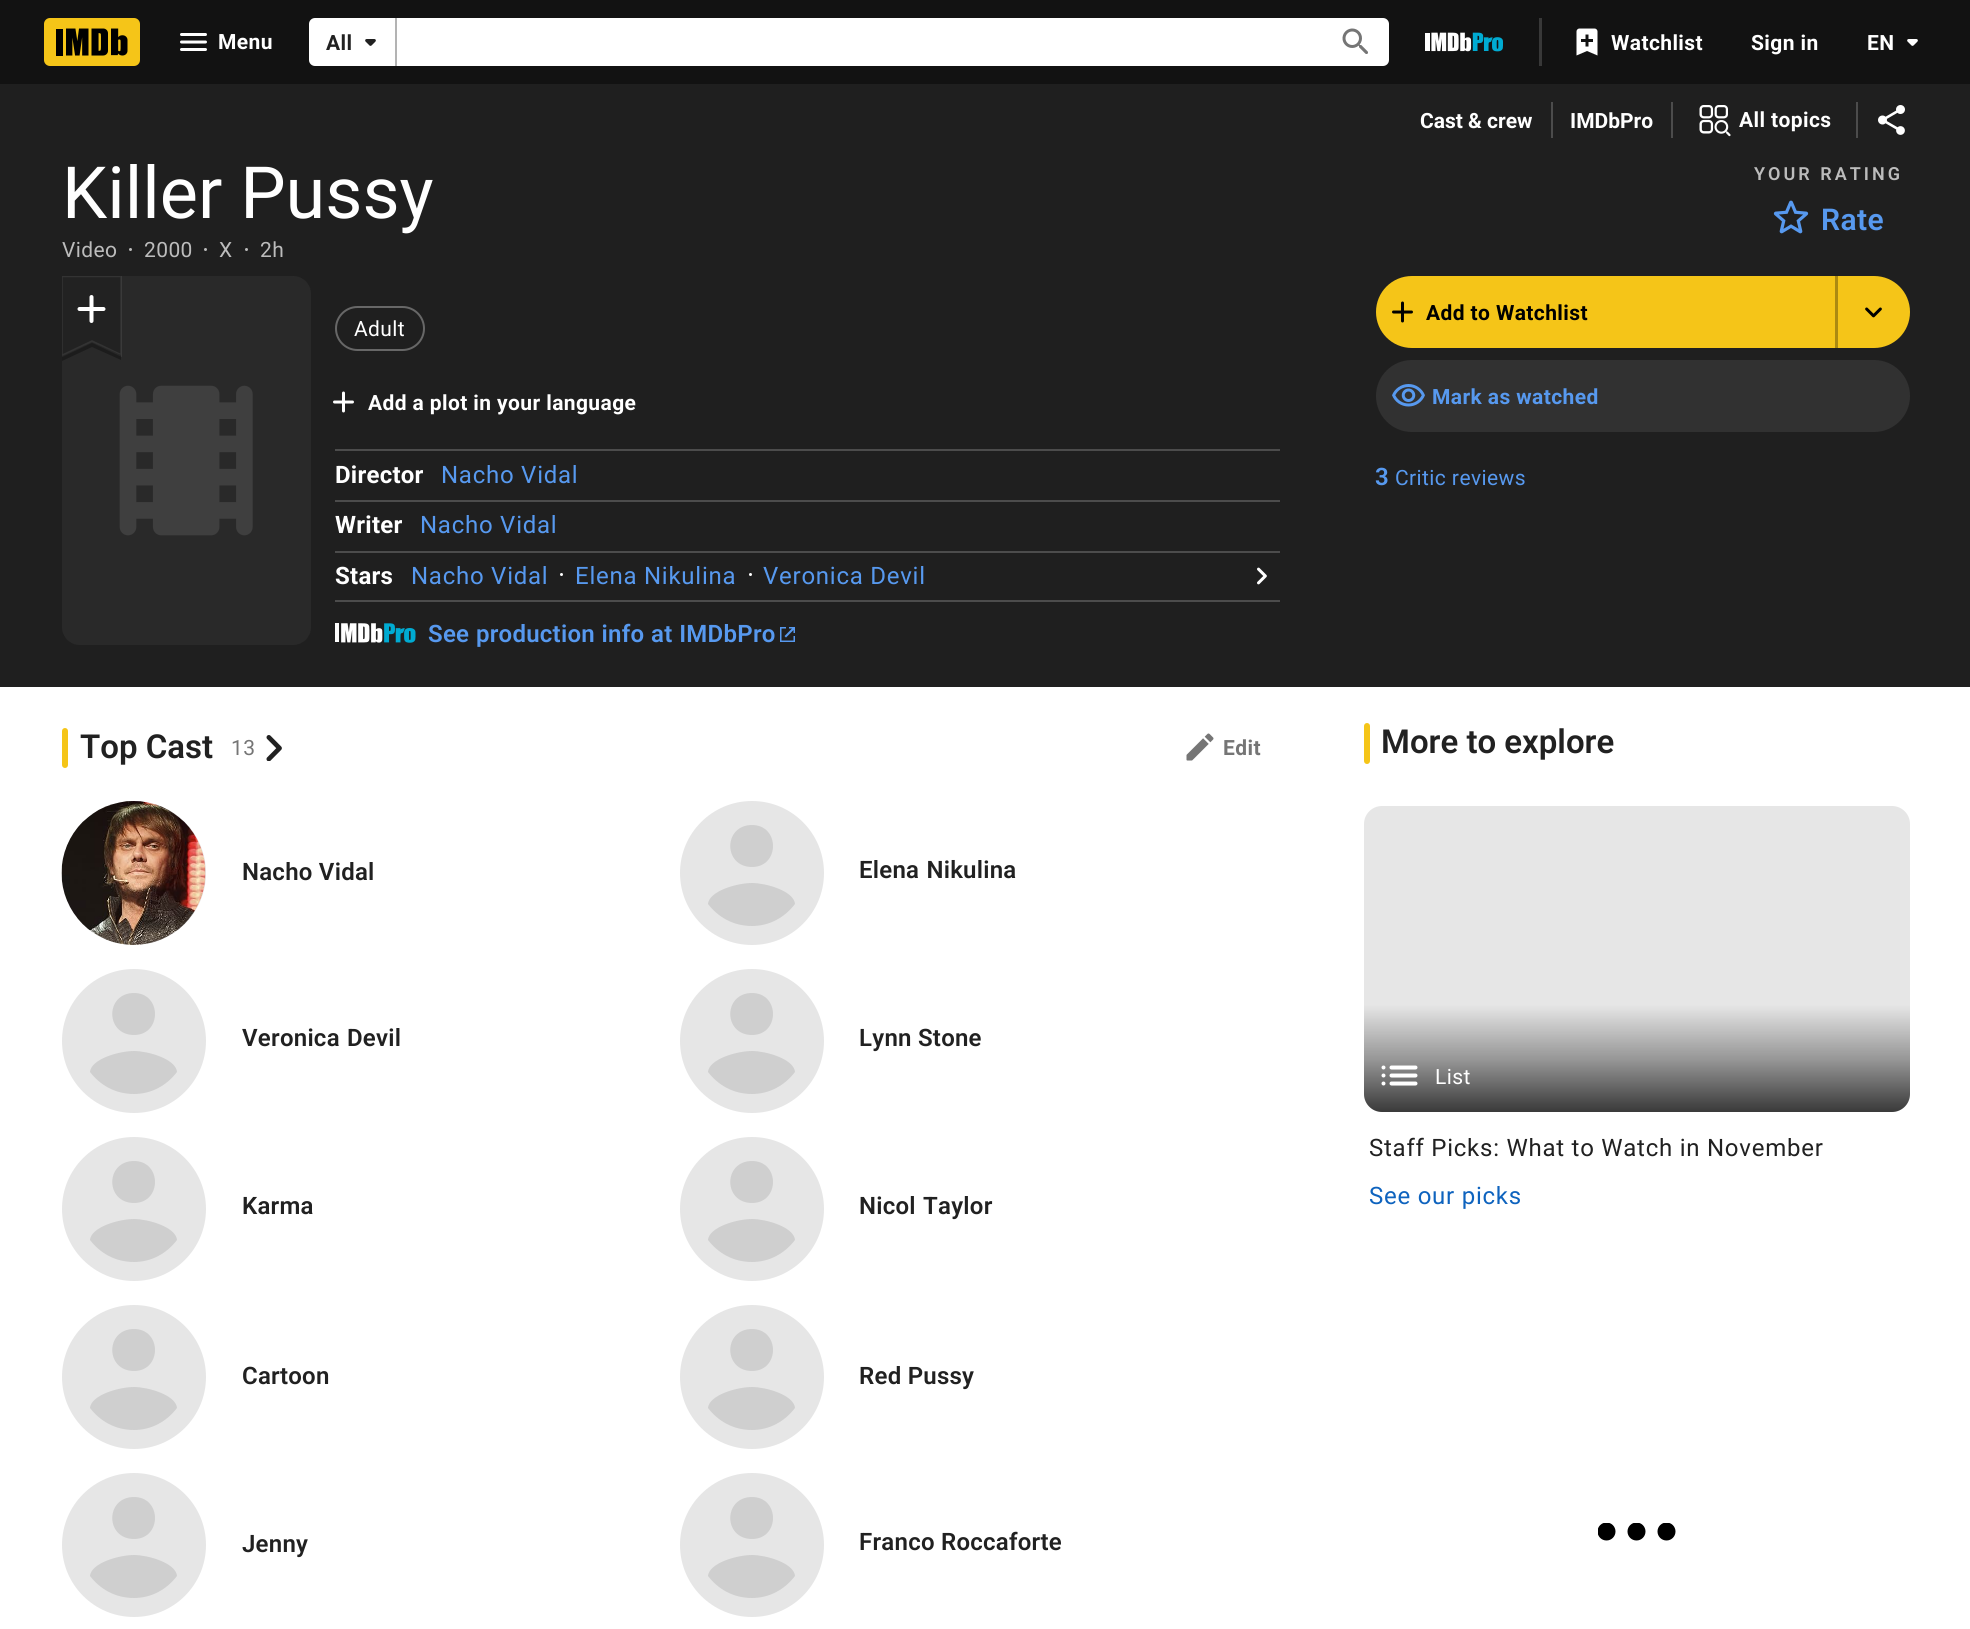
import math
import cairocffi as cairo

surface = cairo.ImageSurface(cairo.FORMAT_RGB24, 1970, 1629)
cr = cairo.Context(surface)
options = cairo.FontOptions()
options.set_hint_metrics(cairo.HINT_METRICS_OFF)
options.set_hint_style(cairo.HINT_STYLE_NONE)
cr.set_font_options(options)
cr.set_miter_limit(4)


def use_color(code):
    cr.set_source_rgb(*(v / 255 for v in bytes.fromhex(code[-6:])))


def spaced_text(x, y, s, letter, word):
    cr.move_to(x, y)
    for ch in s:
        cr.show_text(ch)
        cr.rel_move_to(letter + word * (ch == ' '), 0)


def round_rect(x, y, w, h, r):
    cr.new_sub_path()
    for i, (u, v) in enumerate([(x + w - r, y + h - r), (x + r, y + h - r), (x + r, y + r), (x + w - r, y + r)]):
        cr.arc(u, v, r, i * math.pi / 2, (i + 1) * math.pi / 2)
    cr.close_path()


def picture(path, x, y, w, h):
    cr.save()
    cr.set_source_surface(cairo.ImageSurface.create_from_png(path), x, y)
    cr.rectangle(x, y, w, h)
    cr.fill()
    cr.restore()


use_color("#ffffff")
cr.paint()
use_color("#121212")
cr.rectangle(0, 0, 1970, 84)
cr.fill()
picture("img1.png", 44, 18, 96, 48)
picture("img2.png", 180, 33, 27, 18)
cr.select_font_face("Roboto", cairo.FONT_SLANT_NORMAL, cairo.FONT_WEIGHT_BOLD)
cr.set_font_size(21)
use_color("#ffffff")
spaced_text(218, 49, "Menu", 0.4, 0)
round_rect(309, 18, 1080, 48, 6)
cr.fill()
use_color("#b3b3b3")
cr.rectangle(395, 18, 2, 48)
cr.fill()
use_color("#212121")
spaced_text(326, 50, "All", 0.4, 0)
picture("img3.png", 365, 39, 11, 7)
picture("img4.png", 1342, 28, 26, 26)
picture("img5.png", 1425, 32, 78, 20)
use_color("#383838")
cr.rectangle(1539, 18, 3, 48)
cr.fill()
picture("img6.png", 1576, 28, 22, 28)
use_color("#ffffff")
spaced_text(1611, 50, "Watchlist", 0.4, 0)
spaced_text(1751, 50, "Sign in", 0.4, 0)
spaced_text(1867, 50, "EN", 0.4, 0)
picture("img7.png", 1907, 39, 11, 7)
use_color("#1f1f1f")
cr.rectangle(0, 84, 1970, 603)
cr.fill()
use_color("#ffffff")
cr.move_to(1420, 128)
cr.show_text("Cast & crew")
use_color("#4c4c4c")
cr.rectangle(1551, 102, 2, 36)
cr.fill()
use_color("#ffffff")
cr.move_to(1570, 128)
cr.show_text("IMDbPro")
use_color("#4c4c4c")
cr.rectangle(1671, 102, 2, 36)
cr.fill()
picture("img8.png", 1699, 105, 32, 32)
use_color("#ffffff")
spaced_text(1739, 127, "All topics", 0.4, 0)
use_color("#4c4c4c")
cr.rectangle(1856, 102, 2, 36)
cr.fill()
picture("img9.png", 1878, 105, 27, 30)
cr.select_font_face("Roboto")
cr.set_font_size(72)
use_color("#ffffff")
cr.move_to(62, 218)
cr.show_text("Killer Pussy")
cr.set_font_size(21)
use_color("#bcbcbc")
spaced_text(62, 257, "Video", 0.4, 0)
cr.new_path()
cr.arc(130.5, 249.5, 1.5, 0, 2 * math.pi)
cr.fill()
spaced_text(144, 257, "2000", 0.4, 0)
cr.new_path()
cr.arc(205.5, 249.5, 1.5, 0, 2 * math.pi)
cr.fill()
spaced_text(219, 257, "X", 0.4, 0)
cr.new_path()
cr.arc(246.5, 249.5, 1.5, 0, 2 * math.pi)
cr.fill()
spaced_text(260, 257, "2h", 0.4, 0)
cr.select_font_face("Roboto SemiBold")
cr.set_font_size(18)
spaced_text(1754, 180, "YOUR RATING", 3, 0)
picture("img10.png", 1773, 200, 36, 34)
cr.set_font_size(30)
use_color("#5799ef")
spaced_text(1821, 230, "Rate", 0.4, 0)
use_color("#121212")
cr.new_path()
cr.move_to(62, 276)
cr.line_to(293, 276)
cr.curve_to(303, 276, 311, 284, 311, 294)
cr.line_to(311, 627)
cr.curve_to(311, 637, 303, 645, 293, 645)
cr.line_to(80, 645)
cr.curve_to(70, 645, 62, 637, 62, 627)
cr.close_path()
cr.fill()
cr.set_source_rgba(1, 1, 1, 0.1)
cr.new_path()
cr.move_to(62, 276)
cr.line_to(293, 276)
cr.curve_to(303, 276, 311, 284, 311, 294)
cr.line_to(311, 627)
cr.curve_to(311, 637, 303, 645, 293, 645)
cr.line_to(80, 645)
cr.curve_to(70, 645, 62, 637, 62, 627)
cr.close_path()
cr.fill()
picture("img11.png", 119, 385, 134, 151)
use_color("#222222")
cr.new_path()
cr.move_to(121, 276)
cr.line_to(62, 276)
cr.line_to(62, 356)
cr.line_to(92, 342)
cr.line_to(121, 355)
cr.close_path()
cr.fill()
cr.save()
cr.rectangle(62, 276, 60, 86)
cr.clip()
cr.new_path()
cr.move_to(121.5, 276)
cr.line_to(61.5, 276)
cr.line_to(61.5, 356)
cr.line_to(92, 341.5)
cr.line_to(121.5, 355.5)
cr.close_path()
cr.set_source_rgba(1, 1, 1, 0.08)
cr.set_line_width(2.5)
cr.stroke()
cr.restore()
picture("img12.png", 77, 295, 29, 28)
cr.set_source_rgba(0, 0, 0, 0.32)
cr.new_path()
cr.move_to(121, 355)
cr.line_to(121, 360)
cr.line_to(92, 347)
cr.line_to(62, 361)
cr.line_to(62, 356)
cr.line_to(92, 342)
cr.close_path()
cr.fill()
round_rect(336, 307, 88, 43, 21.5)
use_color("#676767")
cr.stroke()
cr.select_font_face("Roboto")
cr.set_font_size(21)
use_color("#ffffff")
spaced_text(354, 336, "Adult", 0.4, 0)
picture("img13.png", 333, 391, 21, 22)
cr.select_font_face("Roboto", cairo.FONT_SLANT_NORMAL, cairo.FONT_WEIGHT_BOLD)
spaced_text(368, 410, "Add a plot in your language", 0.4, 0)
use_color("#4c4c4c")
cr.rectangle(335, 449, 945, 2)
cr.fill()
cr.set_font_size(24)
use_color("#ffffff")
spaced_text(335, 483, "Director", 0.25, 0)
cr.select_font_face("Roboto")
use_color("#5799ef")
spaced_text(441, 483, "Nacho Vidal", 0.75, 0)
use_color("#4c4c4c")
cr.rectangle(335, 500, 945, 2)
cr.fill()
cr.select_font_face("Roboto", cairo.FONT_SLANT_NORMAL, cairo.FONT_WEIGHT_BOLD)
use_color("#ffffff")
spaced_text(335, 533, "Writer", 0.25, 0)
cr.select_font_face("Roboto")
use_color("#5799ef")
spaced_text(420, 533, "Nacho Vidal", 0.75, 0)
use_color("#4c4c4c")
cr.rectangle(335, 551, 945, 2)
cr.fill()
cr.rectangle(335, 600, 945, 2)
cr.fill()
cr.select_font_face("Roboto", cairo.FONT_SLANT_NORMAL, cairo.FONT_WEIGHT_BOLD)
use_color("#ffffff")
spaced_text(335, 584, "Stars", 0.25, 0)
cr.select_font_face("Roboto")
use_color("#5799ef")
spaced_text(411, 584, "Nacho Vidal", 0.75, 0)
use_color("#ffffff")
cr.new_path()
cr.arc(561.5, 574.5, 1.5, 0, 2 * math.pi)
cr.fill()
use_color("#5799ef")
spaced_text(575, 584, "Elena Nikulina", 0.75, 0)
use_color("#ffffff")
cr.new_path()
cr.arc(750.5, 574.5, 1.5, 0, 2 * math.pi)
cr.fill()
use_color("#5799ef")
spaced_text(763, 584, "Veronica Devil", 0.75, 0)
picture("img14.png", 1257, 567, 10, 18)
picture("img15.png", 335, 623, 81, 20)
cr.select_font_face("Roboto SemiBold")
spaced_text(428, 642, "See production info at IMDbPro", 0.25, 0.5)
picture("img16.png", 780, 627, 15, 15)
use_color("#f5c518")
cr.new_path()
cr.move_to(1412, 276)
cr.line_to(1838, 276)
cr.line_to(1838, 348)
cr.line_to(1412, 348)
cr.curve_to(1392, 348, 1376, 332, 1376, 312)
cr.curve_to(1376, 292, 1392, 276, 1412, 276)
cr.close_path()
cr.fill()
use_color("#ac8a11")
cr.rectangle(1835, 276, 3, 72)
cr.fill()
picture("img17.png", 1392, 301, 21, 22)
cr.select_font_face("Roboto", cairo.FONT_SLANT_NORMAL, cairo.FONT_WEIGHT_BOLD)
cr.set_font_size(21)
use_color("#000000")
spaced_text(1426, 320, "Add to Watchlist", 0.4, 0)
use_color("#f5c518")
cr.new_path()
cr.move_to(1838, 276)
cr.line_to(1874, 276)
cr.curve_to(1894, 276, 1910, 292, 1910, 312)
cr.curve_to(1910, 332, 1894, 348, 1874, 348)
cr.line_to(1838, 348)
cr.close_path()
cr.fill()
picture("img18.png", 1865, 307, 17, 11)
use_color("#313131")
round_rect(1376, 360, 534, 72, 36)
cr.fill()
picture("img19.png", 1392, 384, 33, 23)
use_color("#5799ef")
spaced_text(1432, 404, "Mark as watched", 0.4, 0)
cr.select_font_face("Roboto SemiBold")
cr.set_font_size(24)
spaced_text(1375, 485, "3", 0.25, 0)
cr.select_font_face("Roboto")
cr.set_font_size(21)
spaced_text(1395, 485, "Critic reviews", 0.4, 0)
use_color("#f5c518")
round_rect(62, 728, 6, 40, 3)
cr.fill()
cr.select_font_face("Roboto SemiBold")
cr.set_font_size(33)
use_color("#212121")
cr.move_to(80, 758)
cr.show_text("Top Cast")
cr.select_font_face("Roboto")
cr.set_font_size(21)
use_color("#757575")
spaced_text(231, 755, "13", 0.4, 0)
picture("img20.png", 266, 735, 16, 26)
picture("img21.png", 1186, 733, 28, 28)
cr.select_font_face("Roboto", cairo.FONT_SLANT_NORMAL, cairo.FONT_WEIGHT_BOLD)
spaced_text(1223, 755, "Edit", 0.4, 0)
use_color("#e6e6e6")
cr.new_path()
cr.arc(134, 873, 72, 0, 2 * math.pi)
cr.fill()
picture("img22.png", 61, 801, 145, 144)
cr.select_font_face("Roboto SemiBold")
cr.set_font_size(24)
use_color("#212121")
spaced_text(242, 880, "Nacho Vidal", 0.25, 0)
use_color("#e6e6e6")
cr.new_path()
cr.arc(752, 873, 72, 0, 2 * math.pi)
cr.fill()
use_color("#cfcfcf")
cr.new_path()
cr.move_to(752, 825)
cr.curve_to(780, 825, 780, 867, 752, 867)
cr.curve_to(723, 867, 723, 825, 752, 825)
cr.close_path()
cr.move_to(752, 926)
cr.curve_to(733, 926, 718, 917, 708, 904)
cr.curve_to(709, 891, 737, 883, 752, 883)
cr.curve_to(766, 883, 794, 891, 795, 904)
cr.curve_to(785, 917, 770, 926, 752, 926)
cr.close_path()
cr.fill()
use_color("#212121")
spaced_text(859, 878, "Elena Nikulina", 0.25, 1)
use_color("#e6e6e6")
cr.new_path()
cr.arc(134, 1041, 72, 0, 2 * math.pi)
cr.fill()
use_color("#cfcfcf")
cr.new_path()
cr.move_to(134, 993)
cr.curve_to(162, 993, 162, 1035, 134, 1035)
cr.curve_to(105, 1035, 105, 993, 134, 993)
cr.close_path()
cr.move_to(134, 1094)
cr.curve_to(115, 1094, 100, 1085, 90, 1072)
cr.curve_to(91, 1059, 119, 1051, 134, 1051)
cr.curve_to(148, 1051, 176, 1059, 177, 1072)
cr.curve_to(167, 1085, 152, 1094, 134, 1094)
cr.close_path()
cr.fill()
use_color("#212121")
spaced_text(242, 1046, "Veronica Devil", 0.25, 1)
use_color("#e6e6e6")
cr.new_path()
cr.arc(752, 1041, 72, 0, 2 * math.pi)
cr.fill()
use_color("#cfcfcf")
cr.new_path()
cr.move_to(752, 993)
cr.curve_to(780, 993, 780, 1035, 752, 1035)
cr.curve_to(723, 1035, 723, 993, 752, 993)
cr.close_path()
cr.move_to(752, 1094)
cr.curve_to(733, 1094, 718, 1085, 708, 1072)
cr.curve_to(709, 1059, 737, 1051, 752, 1051)
cr.curve_to(766, 1051, 794, 1059, 795, 1072)
cr.curve_to(785, 1085, 770, 1094, 752, 1094)
cr.close_path()
cr.fill()
use_color("#212121")
spaced_text(859, 1046, "Lynn Stone", 0.25, 0)
use_color("#e6e6e6")
cr.new_path()
cr.arc(134, 1209, 72, 0, 2 * math.pi)
cr.fill()
use_color("#cfcfcf")
cr.new_path()
cr.move_to(134, 1161)
cr.curve_to(162, 1161, 162, 1203, 134, 1203)
cr.curve_to(105, 1203, 105, 1161, 134, 1161)
cr.close_path()
cr.move_to(134, 1262)
cr.curve_to(115, 1262, 100, 1253, 90, 1240)
cr.curve_to(91, 1227, 119, 1219, 134, 1219)
cr.curve_to(148, 1219, 176, 1227, 177, 1240)
cr.curve_to(167, 1253, 152, 1262, 134, 1262)
cr.close_path()
cr.fill()
use_color("#212121")
spaced_text(242, 1214, "Karma", 0.25, 0)
use_color("#e6e6e6")
cr.new_path()
cr.arc(752, 1209, 72, 0, 2 * math.pi)
cr.fill()
use_color("#cfcfcf")
cr.new_path()
cr.move_to(752, 1161)
cr.curve_to(780, 1161, 780, 1203, 752, 1203)
cr.curve_to(723, 1203, 723, 1161, 752, 1161)
cr.close_path()
cr.move_to(752, 1262)
cr.curve_to(733, 1262, 718, 1253, 708, 1240)
cr.curve_to(709, 1227, 737, 1219, 752, 1219)
cr.curve_to(766, 1219, 794, 1227, 795, 1240)
cr.curve_to(785, 1253, 770, 1262, 752, 1262)
cr.close_path()
cr.fill()
use_color("#212121")
spaced_text(859, 1214, "Nicol Taylor", 0.25, 1)
use_color("#e6e6e6")
cr.new_path()
cr.arc(134, 1377, 72, 0, 2 * math.pi)
cr.fill()
use_color("#cfcfcf")
cr.new_path()
cr.move_to(134, 1329)
cr.curve_to(162, 1329, 162, 1371, 134, 1371)
cr.curve_to(105, 1371, 105, 1329, 134, 1329)
cr.close_path()
cr.move_to(134, 1430)
cr.curve_to(115, 1430, 100, 1421, 90, 1408)
cr.curve_to(91, 1395, 119, 1387, 134, 1387)
cr.curve_to(148, 1387, 176, 1395, 177, 1408)
cr.curve_to(167, 1421, 152, 1430, 134, 1430)
cr.close_path()
cr.fill()
use_color("#212121")
spaced_text(242, 1384, "Cartoon", 0.25, 0)
use_color("#e6e6e6")
cr.new_path()
cr.arc(752, 1377, 72, 0, 2 * math.pi)
cr.fill()
use_color("#cfcfcf")
cr.new_path()
cr.move_to(752, 1329)
cr.curve_to(780, 1329, 780, 1371, 752, 1371)
cr.curve_to(723, 1371, 723, 1329, 752, 1329)
cr.close_path()
cr.move_to(752, 1430)
cr.curve_to(733, 1430, 718, 1421, 708, 1408)
cr.curve_to(709, 1395, 737, 1387, 752, 1387)
cr.curve_to(766, 1387, 794, 1395, 795, 1408)
cr.curve_to(785, 1421, 770, 1430, 752, 1430)
cr.close_path()
cr.fill()
use_color("#212121")
spaced_text(859, 1384, "Red Pussy", 0.25, 0)
use_color("#e6e6e6")
cr.new_path()
cr.arc(134, 1545, 72, 0, 2 * math.pi)
cr.fill()
use_color("#cfcfcf")
cr.new_path()
cr.move_to(134, 1497)
cr.curve_to(162, 1497, 162, 1539, 134, 1539)
cr.curve_to(105, 1539, 105, 1497, 134, 1497)
cr.close_path()
cr.move_to(134, 1598)
cr.curve_to(115, 1598, 100, 1589, 90, 1576)
cr.curve_to(91, 1563, 119, 1555, 134, 1555)
cr.curve_to(148, 1555, 176, 1563, 177, 1576)
cr.curve_to(167, 1589, 152, 1598, 134, 1598)
cr.close_path()
cr.fill()
use_color("#212121")
spaced_text(242, 1552, "Jenny", 0.25, 0)
use_color("#e6e6e6")
cr.new_path()
cr.arc(752, 1545, 72, 0, 2 * math.pi)
cr.fill()
use_color("#cfcfcf")
cr.new_path()
cr.move_to(752, 1497)
cr.curve_to(780, 1497, 780, 1539, 752, 1539)
cr.curve_to(723, 1539, 723, 1497, 752, 1497)
cr.close_path()
cr.move_to(752, 1598)
cr.curve_to(733, 1598, 718, 1589, 708, 1576)
cr.curve_to(709, 1563, 737, 1555, 752, 1555)
cr.curve_to(766, 1555, 794, 1563, 795, 1576)
cr.curve_to(785, 1589, 770, 1598, 752, 1598)
cr.close_path()
cr.fill()
use_color("#212121")
spaced_text(859, 1550, "Franco Roccaforte", 0.25, 0)
use_color("#f5c518")
round_rect(1364, 723, 6, 41, 3)
cr.fill()
cr.set_font_size(33)
use_color("#212121")
cr.move_to(1381, 753)
cr.show_text("More to explore")
use_color("#e6e6e6")
round_rect(1364, 806, 546, 306, 18)
cr.fill()
gradient = cairo.LinearGradient(1637, 806, 1637, 1112)
gradient.add_color_stop_rgba(0, 0, 0, 0, 0)
gradient.add_color_stop_rgba(0.65, 0, 0, 0, 0)
gradient.add_color_stop_rgba(0.83, 0, 0, 0, 0.35)
gradient.add_color_stop_rgba(1, 0, 0, 0, 0.75)
cr.set_source(gradient)
round_rect(1364, 806, 546, 306, 18)
cr.fill()
picture("img23.png", 1381, 1065, 37, 21)
cr.select_font_face("Roboto")
cr.set_font_size(21)
use_color("#ffffff")
spaced_text(1435, 1084, "List", 0.4, 0)
cr.set_font_size(24)
use_color("#212121")
spaced_text(1369, 1156, "Staff Picks: What to Watch in November", 0.75, 0)
use_color("#0e63be")
spaced_text(1369, 1204, "See our picks", 0.75, 0)
cr.save()
cr.rectangle(1598, 1523, 78, 18)
cr.clip()
use_color("#000000")
cr.arc(1606.5, 1531.5, 9, 0, 2 * math.pi)
cr.fill()
cr.arc(1636.5, 1531.5, 9, 0, 2 * math.pi)
cr.fill()
cr.arc(1666.5, 1531.5, 9, 0, 2 * math.pi)
cr.fill()
cr.restore()
surface.write_to_png("result.png")
